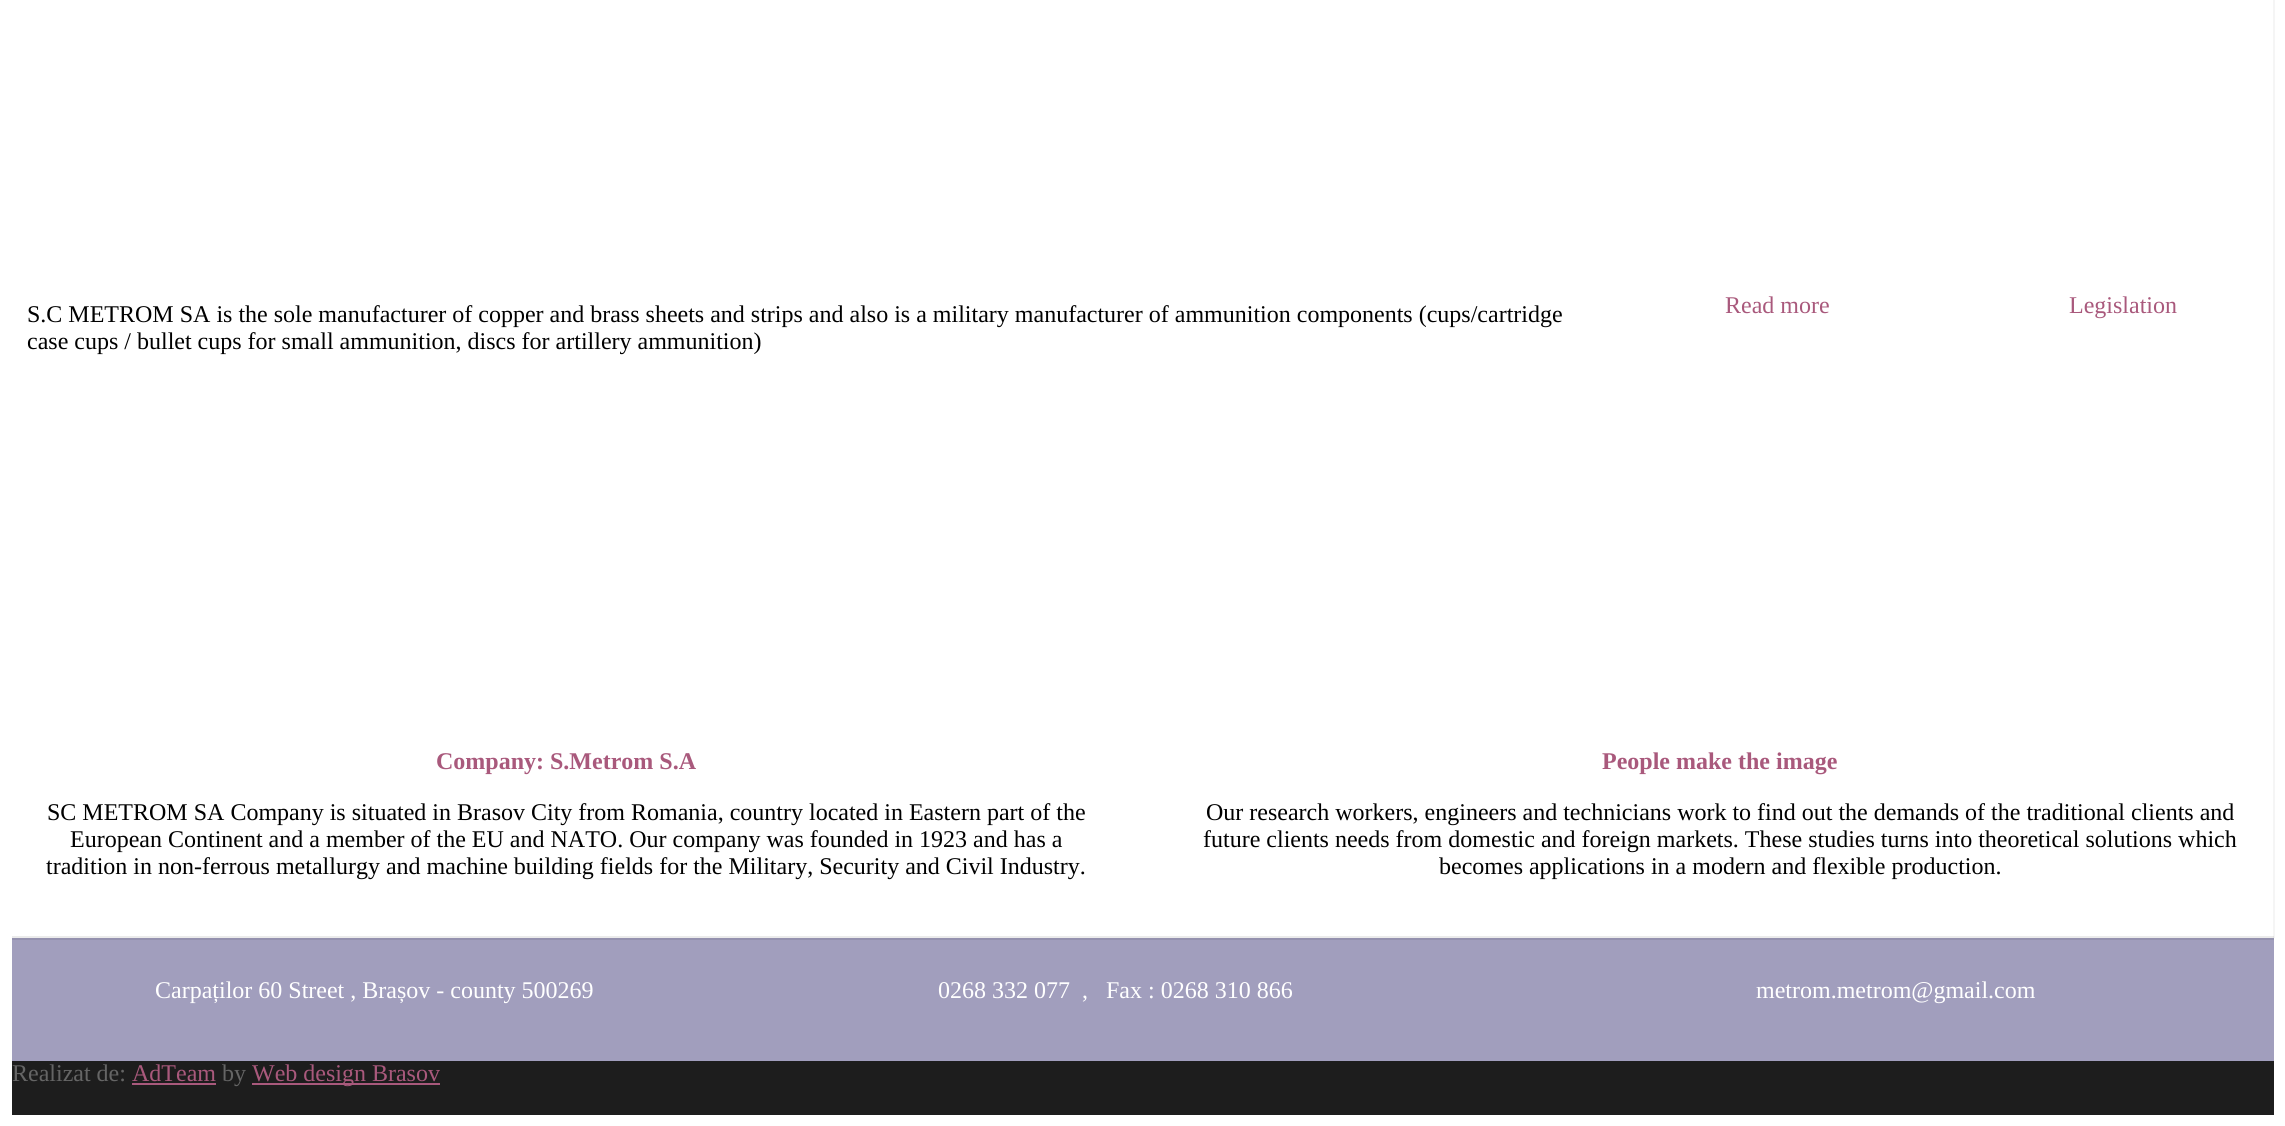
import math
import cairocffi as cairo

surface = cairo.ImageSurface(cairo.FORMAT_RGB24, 2285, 1126)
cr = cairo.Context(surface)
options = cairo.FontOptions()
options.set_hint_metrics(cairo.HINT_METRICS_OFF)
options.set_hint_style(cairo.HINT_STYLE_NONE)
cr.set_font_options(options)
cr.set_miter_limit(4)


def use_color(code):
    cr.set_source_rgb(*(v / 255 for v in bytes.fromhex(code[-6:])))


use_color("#ffffff")
cr.paint()
use_color("#ebebeb")
cr.rectangle(12, 936, 2262, 2)
cr.fill()
use_color("#f5f5f5")
cr.rectangle(2273, 0, 2, 938)
cr.fill()
use_color("#e1e1e1")
cr.rectangle(2273, 936, 1, 2)
cr.fill()
cr.select_font_face("Liberation Serif")
cr.set_font_size(24)
use_color("#000000")
cr.move_to(27, 322)
cr.show_text("S.C METROM SA is the sole manufacturer of copper and brass sheets and strips and also is a military manufacturer of ammunition components (cups/cartridge")
cr.move_to(27, 349)
cr.show_text("case cups / bullet cups for small ammunition, discs for artillery ammunition)")
use_color("#a9597c")
cr.move_to(1725, 313)
cr.show_text("Read more")
cr.move_to(2069, 313)
cr.show_text("Legislation")
cr.select_font_face("Liberation Serif", cairo.FONT_SLANT_NORMAL, cairo.FONT_WEIGHT_BOLD)
cr.move_to(436, 769)
cr.show_text("Company: S.Metrom S.A")
cr.select_font_face("Liberation Serif")
use_color("#000000")
cr.move_to(47, 820)
cr.show_text("SC METROM SA Company is situated in Brasov City from Romania, country located in Eastern part of the")
cr.move_to(70, 847)
cr.show_text("European Continent and a member of the EU and NATO. Our company was founded in 1923 and has a")
cr.move_to(46, 874)
cr.show_text("tradition in non-ferrous metallurgy and machine building fields for the Military, Security and Civil Industry.")
cr.select_font_face("Liberation Serif", cairo.FONT_SLANT_NORMAL, cairo.FONT_WEIGHT_BOLD)
use_color("#a9597c")
cr.move_to(1602, 769)
cr.show_text("People make the image")
cr.select_font_face("Liberation Serif")
use_color("#000000")
cr.move_to(1206, 820)
cr.show_text("Our research workers, engineers and technicians work to find out the demands of the traditional clients and")
cr.move_to(1203, 847)
cr.show_text("future clients needs from domestic and foreign markets. These studies turns into theoretical solutions which")
cr.move_to(1439, 874)
cr.show_text("becomes applications in a modern and flexible production.")
use_color("#a19ebd")
cr.rectangle(12, 940, 2262, 121)
cr.fill()
use_color("#9491ae")
cr.rectangle(12, 938, 2262, 2)
cr.fill()
use_color("#ffffff")
cr.move_to(155, 998)
cr.show_text("Carpaților 60 Street , Brașov - county 500269")
cr.move_to(938, 998)
cr.show_text("0268 332 077  ,   Fax : 0268 310 866")
cr.move_to(1756, 998)
cr.show_text("metrom.metrom@gmail.com")
use_color("#1d1d1d")
cr.rectangle(12, 1061, 2262, 54)
cr.fill()
use_color("#656565")
cr.move_to(12, 1081)
cr.show_text("Realizat de:")
use_color("#a9597c")
cr.move_to(132, 1081)
cr.show_text("AdTeam")
cr.rectangle(132, 1083, 84, 2)
cr.fill()
use_color("#656565")
cr.move_to(222, 1081)
cr.show_text("by")
use_color("#a9597c")
cr.rectangle(252, 1083, 188, 2)
cr.fill()
cr.move_to(252, 1081)
cr.show_text("Web design Brasov")
surface.write_to_png("result.png")
